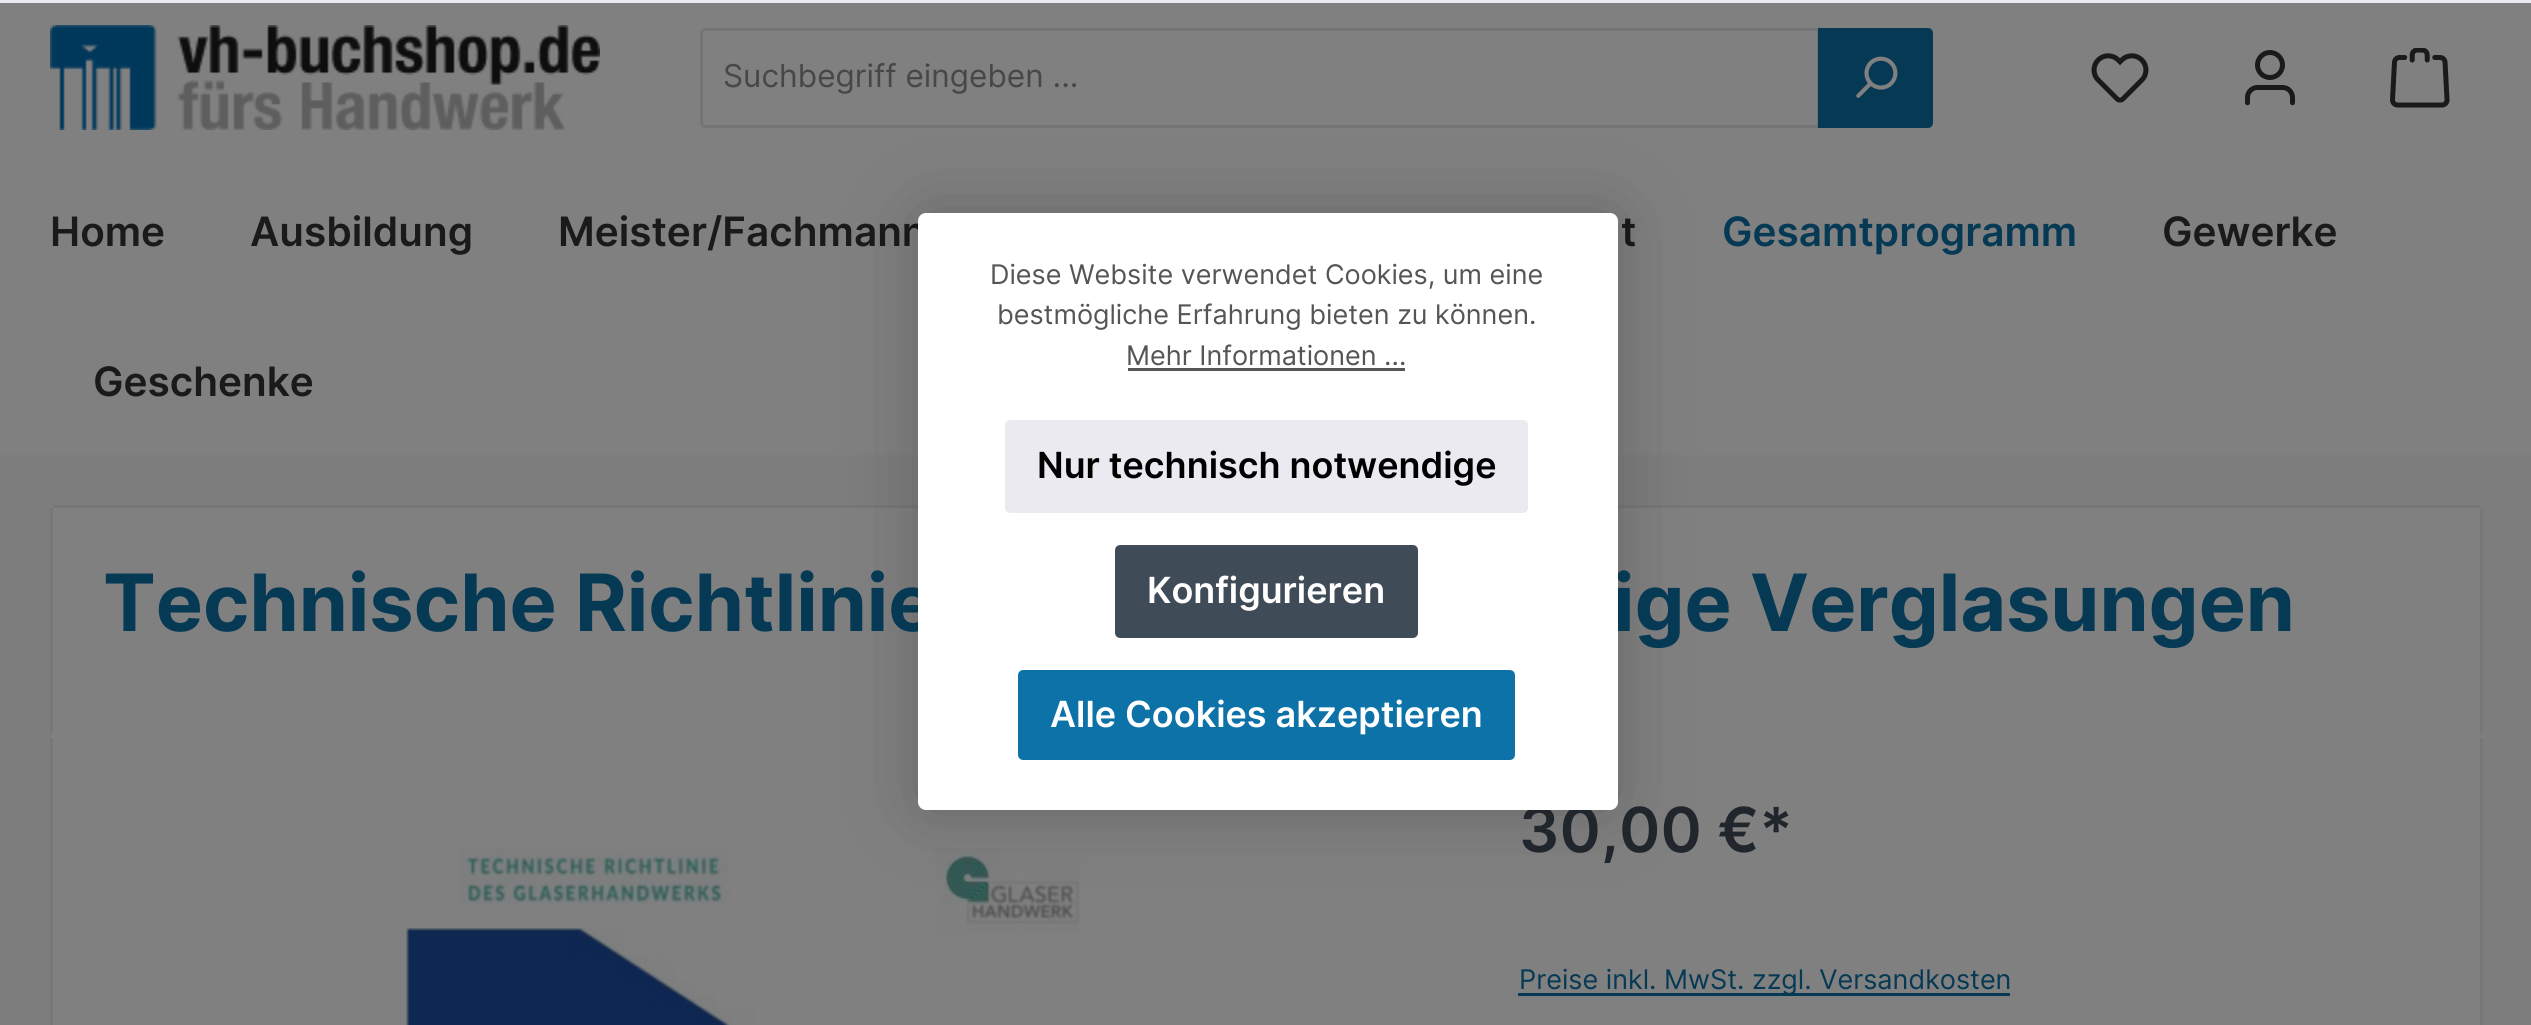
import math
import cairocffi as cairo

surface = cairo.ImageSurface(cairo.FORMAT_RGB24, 2531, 1025)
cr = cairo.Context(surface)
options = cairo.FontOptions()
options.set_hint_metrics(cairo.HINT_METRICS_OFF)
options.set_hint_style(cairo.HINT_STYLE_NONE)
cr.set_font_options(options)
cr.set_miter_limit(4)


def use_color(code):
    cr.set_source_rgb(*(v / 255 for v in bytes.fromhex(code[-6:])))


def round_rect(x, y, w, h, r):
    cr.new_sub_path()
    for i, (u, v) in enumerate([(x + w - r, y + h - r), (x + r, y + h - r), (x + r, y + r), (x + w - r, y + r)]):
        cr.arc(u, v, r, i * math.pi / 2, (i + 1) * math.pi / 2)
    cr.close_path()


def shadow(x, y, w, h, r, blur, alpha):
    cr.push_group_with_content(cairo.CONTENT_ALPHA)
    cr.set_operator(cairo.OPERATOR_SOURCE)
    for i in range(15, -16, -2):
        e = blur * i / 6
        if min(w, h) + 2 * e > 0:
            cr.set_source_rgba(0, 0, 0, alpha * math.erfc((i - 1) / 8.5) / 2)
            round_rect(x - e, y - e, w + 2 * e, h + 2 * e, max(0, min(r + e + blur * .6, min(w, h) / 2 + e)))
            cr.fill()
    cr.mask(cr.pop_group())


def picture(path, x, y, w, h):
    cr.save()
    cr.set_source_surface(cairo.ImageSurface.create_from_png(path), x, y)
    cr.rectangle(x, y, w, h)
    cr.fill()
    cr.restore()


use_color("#7d7d7d")
cr.paint()
use_color("#808080")
cr.rectangle(0, 3, 2531, 452)
cr.fill()
picture("img1.png", 50, 25, 550, 105)
cr.new_path()
cr.move_to(705, 29.5)
cr.line_to(1818.5, 29.5)
cr.line_to(1818.5, 126.5)
cr.line_to(705, 126.5)
cr.curve_to(703, 126.5, 701.5, 125, 701.5, 123)
cr.line_to(701.5, 33)
cr.curve_to(701.5, 31, 703, 29.5, 705, 29.5)
cr.close_path()
use_color("#727475")
cr.set_line_width(3)
cr.stroke()
cr.select_font_face("Inter")
cr.set_font_size(31.5)
use_color("#474747")
cr.move_to(723, 87)
cr.show_text("Suchbegriff eingeben ...")
use_color("#063954")
cr.new_path()
cr.move_to(1819.5, 29.5)
cr.line_to(1928, 29.5)
cr.curve_to(1930, 29.5, 1931.5, 31, 1931.5, 33)
cr.line_to(1931.5, 123)
cr.curve_to(1931.5, 125, 1930, 126.5, 1928, 126.5)
cr.line_to(1819.5, 126.5)
cr.close_path()
cr.fill_preserve()
cr.stroke()
picture("img2.png", 1856, 56, 42, 42)
picture("img3.png", 2091, 53, 58, 50)
picture("img4.png", 2245, 50, 50, 56)
picture("img5.png", 2390, 48, 60, 60)
cr.select_font_face("Inter SemiBold")
cr.set_font_size(40.5)
use_color("#1a1a1a")
cr.move_to(50, 246)
cr.show_text("Home")
cr.move_to(250, 246)
cr.show_text("Ausbildung")
cr.move_to(558, 246)
cr.show_text("Meister/Fachmann")
cr.move_to(1621, 246)
cr.show_text("t")
use_color("#063954")
cr.move_to(1722, 246)
cr.show_text("Gesamtprogramm")
use_color("#1a1a1a")
cr.move_to(2162, 246)
cr.show_text("Gewerke")
cr.move_to(93, 396)
cr.show_text("Geschenke")
use_color("#eaeaf0")
cr.rectangle(0, 0, 2531, 3)
cr.fill()
use_color("#808080")
round_rect(50, 505, 2433, 230, 5)
cr.fill()
use_color("#777777")
cr.rectangle(53, 505, 2427, 3)
cr.fill()
use_color("#808080")
round_rect(50, 735, 2433, 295, 5)
cr.fill()
picture("img6.png", 406, 848, 675, 177)
use_color("#000000")
shadow(918, 213, 700, 597, 8, 37.5, 0.2)
cr.select_font_face("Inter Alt", cairo.FONT_SLANT_NORMAL, cairo.FONT_WEIGHT_BOLD)
cr.set_font_size(79)
use_color("#063954")
cr.move_to(103, 631)
cr.show_text("Technische Richtlinie")
cr.move_to(1613, 631)
cr.show_text("ige Verglasungen")
cr.select_font_face("Inter SemiBold")
cr.set_font_size(62)
use_color("#20262c")
cr.move_to(1519, 852)
cr.show_text("30,00 €*")
use_color("#ffffff")
round_rect(918, 213, 700, 597, 8)
cr.fill()
cr.select_font_face("Inter")
cr.set_font_size(27)
use_color("#555555")
cr.move_to(990, 284)
cr.show_text("Diese Website verwendet Cookies, um eine")
cr.move_to(997, 324)
cr.show_text("bestmögliche Erfahrung bieten zu können.")
cr.move_to(1126, 365)
cr.show_text("Mehr Informationen ...")
cr.rectangle(1128, 368, 277, 3)
cr.fill()
use_color("#eaeaf0")
round_rect(1006.5, 421.5, 520, 90, 3.5)
cr.fill_preserve()
cr.stroke()
cr.select_font_face("Inter SemiBold")
cr.set_font_size(36)
use_color("#000000")
cr.move_to(1037, 478)
cr.show_text("Nur technisch notwendige")
use_color("#404b58")
round_rect(1116.5, 546.5, 300, 90, 3.5)
cr.fill_preserve()
cr.stroke()
use_color("#ffffff")
cr.move_to(1147, 603)
cr.show_text("Konfigurieren")
use_color("#0c72a7")
round_rect(1019.5, 671.5, 494, 87, 3.5)
cr.fill_preserve()
cr.stroke()
use_color("#ffffff")
cr.move_to(1050, 727)
cr.show_text("Alle Cookies akzeptieren")
use_color("#777777")
cr.rectangle(2480, 508, 3, 225)
cr.fill()
cr.rectangle(50, 508, 3, 225)
cr.fill()
cr.rectangle(2480, 738, 3, 287)
cr.fill()
cr.rectangle(50, 738, 3, 287)
cr.fill()
use_color("#063954")
cr.rectangle(1518, 993, 492, 3)
cr.fill()
cr.select_font_face("Inter")
cr.set_font_size(27)
cr.move_to(1519, 989)
cr.show_text("Preise inkl. MwSt. zzgl. Versandkosten")
surface.write_to_png("result.png")
